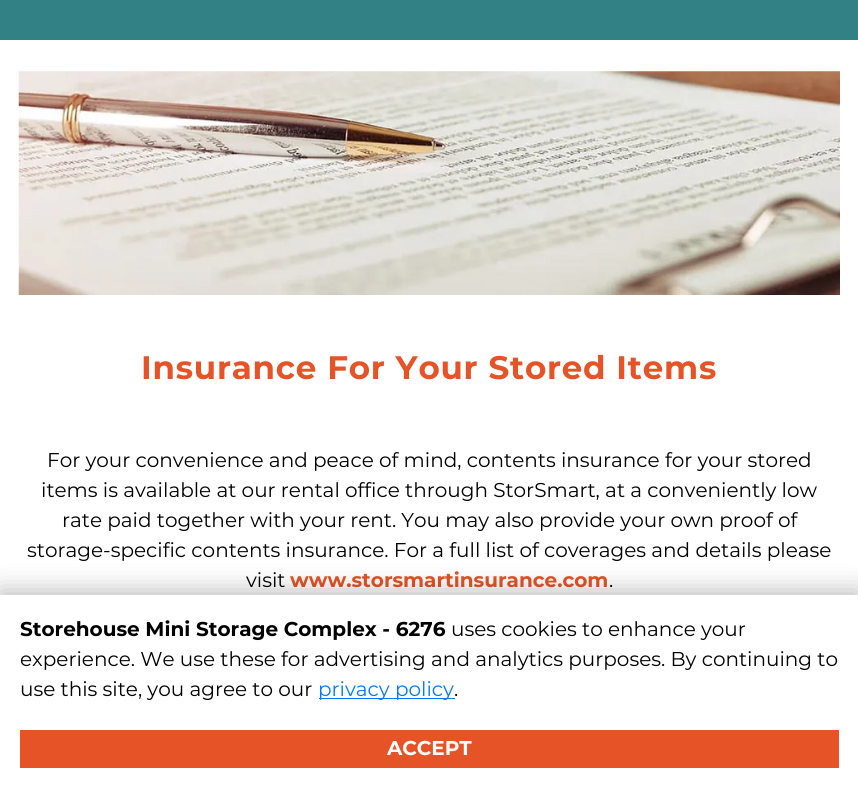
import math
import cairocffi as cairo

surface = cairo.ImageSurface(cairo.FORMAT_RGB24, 858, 787)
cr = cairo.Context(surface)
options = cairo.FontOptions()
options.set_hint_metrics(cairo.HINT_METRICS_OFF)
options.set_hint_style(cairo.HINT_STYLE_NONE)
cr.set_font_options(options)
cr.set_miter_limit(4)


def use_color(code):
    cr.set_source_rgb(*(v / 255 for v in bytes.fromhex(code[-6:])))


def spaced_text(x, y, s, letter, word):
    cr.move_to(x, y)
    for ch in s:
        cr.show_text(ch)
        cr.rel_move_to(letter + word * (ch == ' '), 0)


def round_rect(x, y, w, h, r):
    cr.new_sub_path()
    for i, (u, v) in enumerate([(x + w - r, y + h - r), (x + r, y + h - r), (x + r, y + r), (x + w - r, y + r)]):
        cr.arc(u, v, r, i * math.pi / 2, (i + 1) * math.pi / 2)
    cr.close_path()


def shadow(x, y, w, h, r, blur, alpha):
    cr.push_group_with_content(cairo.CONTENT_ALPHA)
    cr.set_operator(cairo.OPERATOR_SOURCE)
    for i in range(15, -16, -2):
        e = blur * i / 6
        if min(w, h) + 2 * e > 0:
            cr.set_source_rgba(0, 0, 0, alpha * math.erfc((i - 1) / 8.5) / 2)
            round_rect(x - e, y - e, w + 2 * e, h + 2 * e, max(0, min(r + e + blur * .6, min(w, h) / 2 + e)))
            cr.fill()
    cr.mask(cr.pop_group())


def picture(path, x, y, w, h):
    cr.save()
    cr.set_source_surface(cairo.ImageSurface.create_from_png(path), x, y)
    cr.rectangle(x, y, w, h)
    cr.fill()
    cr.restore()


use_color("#ffffff")
cr.paint()
use_color("#328185")
cr.rectangle(0, 0, 858, 40)
cr.fill()
picture("img1.png", 18, 71, 822, 224)
cr.select_font_face("Montserrat", cairo.FONT_SLANT_NORMAL, cairo.FONT_WEIGHT_BOLD)
cr.set_font_size(32.5)
use_color("#e65326")
spaced_text(141, 379, "Insurance For Your Stored Items", 0.8, 0)
cr.select_font_face("Montserrat")
cr.set_font_size(20)
use_color("#000000")
cr.move_to(47, 467)
cr.show_text("For your convenience and peace of mind, contents insurance for your stored")
cr.move_to(41, 497)
cr.show_text("items is available at our rental office through StorSmart, at a conveniently low")
cr.move_to(62, 527)
cr.show_text("rate paid together with your rent. You may also provide your own proof of")
cr.move_to(27, 557)
cr.show_text("storage-specific contents insurance. For a full list of coverages and details please")
cr.move_to(246, 587)
cr.show_text("visit")
cr.select_font_face("Montserrat", cairo.FONT_SLANT_NORMAL, cairo.FONT_WEIGHT_BOLD)
use_color("#e65326")
cr.move_to(290, 587)
cr.show_text("www.storsmartinsurance.com")
cr.select_font_face("Montserrat")
use_color("#000000")
cr.move_to(609, 587)
cr.show_text(".")
use_color("#000000")
shadow(0, 590, 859, 193, 0, 12.5, 0.25)
use_color("#ffffff")
cr.rectangle(0, 595, 858, 192)
cr.fill()
cr.select_font_face("Montserrat", cairo.FONT_SLANT_NORMAL, cairo.FONT_WEIGHT_BOLD)
use_color("#000000")
cr.move_to(20, 636)
cr.show_text("Storehouse Mini Storage Complex - 6276")
cr.select_font_face("Montserrat")
cr.move_to(451, 636)
cr.show_text("uses cookies to enhance your")
cr.move_to(20, 666)
cr.show_text("experience. We use these for advertising and analytics purposes. By continuing to")
cr.move_to(20, 696)
cr.show_text("use this site, you agree to our")
use_color("#007bff")
cr.rectangle(319, 698, 136, 1)
cr.fill()
cr.move_to(318, 696)
cr.show_text("privacy policy")
use_color("#000000")
cr.move_to(454, 696)
cr.show_text(".")
use_color("#e65326")
cr.rectangle(20, 730, 819, 38)
cr.fill()
cr.select_font_face("Montserrat", cairo.FONT_SLANT_NORMAL, cairo.FONT_WEIGHT_BOLD)
use_color("#ffffff")
cr.move_to(387, 755)
cr.show_text("ACCEPT")
surface.write_to_png("result.png")
